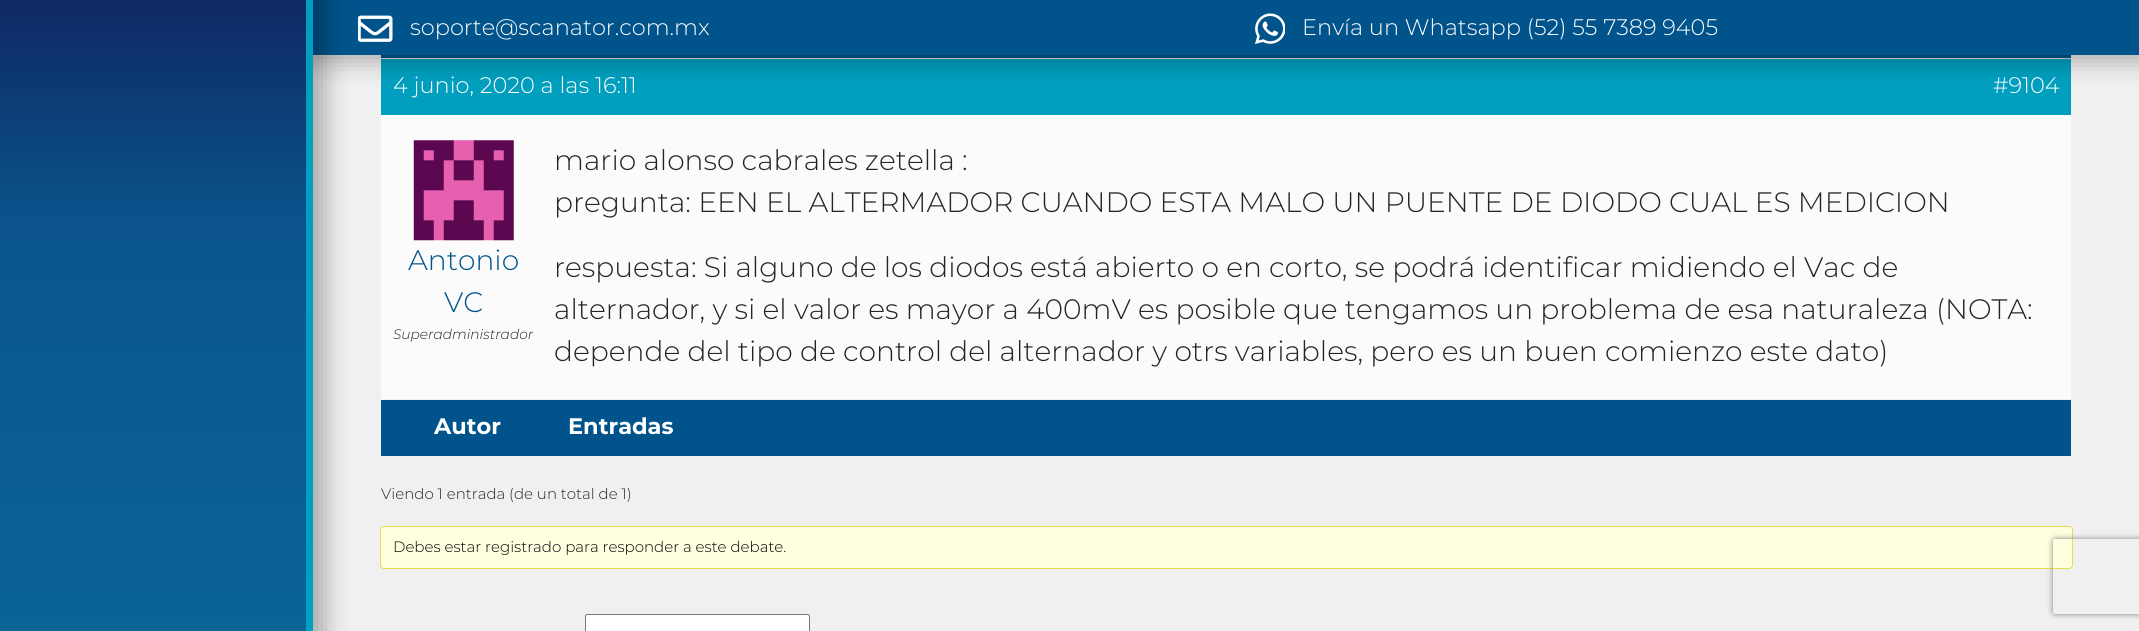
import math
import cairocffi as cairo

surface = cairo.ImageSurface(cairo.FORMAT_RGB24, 2139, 631)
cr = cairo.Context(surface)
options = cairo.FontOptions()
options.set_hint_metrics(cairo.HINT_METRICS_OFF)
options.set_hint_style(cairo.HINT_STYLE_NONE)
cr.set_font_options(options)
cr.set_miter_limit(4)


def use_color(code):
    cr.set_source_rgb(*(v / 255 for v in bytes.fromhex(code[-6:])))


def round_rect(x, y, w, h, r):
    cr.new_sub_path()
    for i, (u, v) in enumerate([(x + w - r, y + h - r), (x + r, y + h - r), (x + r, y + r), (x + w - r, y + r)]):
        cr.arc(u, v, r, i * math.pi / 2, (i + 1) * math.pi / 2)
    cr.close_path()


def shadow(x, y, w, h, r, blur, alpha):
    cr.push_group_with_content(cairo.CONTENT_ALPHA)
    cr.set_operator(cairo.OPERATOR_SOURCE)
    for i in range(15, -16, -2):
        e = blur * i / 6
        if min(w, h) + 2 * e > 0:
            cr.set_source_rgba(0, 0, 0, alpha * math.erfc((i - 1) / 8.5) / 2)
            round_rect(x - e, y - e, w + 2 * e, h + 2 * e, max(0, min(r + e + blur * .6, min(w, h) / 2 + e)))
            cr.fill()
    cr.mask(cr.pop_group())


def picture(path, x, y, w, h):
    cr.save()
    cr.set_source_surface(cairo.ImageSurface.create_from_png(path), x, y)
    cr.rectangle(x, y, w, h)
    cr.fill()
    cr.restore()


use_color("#f0f0f0")
cr.paint()
use_color("#00548b")
cr.rectangle(381, 55, 1690, 3)
cr.fill()
use_color("#019fbf")
cr.rectangle(381, 59, 1690, 56)
cr.fill()
use_color("#dddddd")
cr.rectangle(381, 58, 1690, 1)
cr.fill()
use_color("#000000")
shadow(313, -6, 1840, 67, 0, 12.5, 0.3)
use_color("#00548b")
cr.rectangle(313, 0, 1826, 55)
cr.fill()
picture("img1.png", 358, 15, 35, 27)
use_color("#000000")
shadow(0, -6, 325, 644, 0, 12.5, 0.3)
gradient = cairo.LinearGradient(153, 0, 153, 631)
gradient.add_color_stop_rgba(0, 0.059, 0.157, 0.392, 1)
gradient.add_color_stop_rgba(0.35, 0.039, 0.329, 0.545, 1)
gradient.add_color_stop_rgba(1, 0.039, 0.392, 0.588, 1)
cr.set_source(gradient)
cr.rectangle(0, 0, 306, 631)
cr.fill()
use_color("#019fbf")
cr.rectangle(306, 0, 7, 631)
cr.fill()
cr.select_font_face("Montserrat Light")
cr.set_font_size(22.5)
use_color("#ffffff")
cr.move_to(410, 35)
cr.show_text("soporte@scanator.com.mx")
picture("img2.png", 1255, 13, 30, 31)
cr.move_to(1302, 35)
cr.show_text("Envía un Whatsapp (52) 55 7389 9405")
cr.move_to(393, 93)
cr.show_text("4 junio, 2020 a las 16:11")
cr.move_to(1993, 93)
cr.show_text("#9104")
use_color("#fbfbfb")
cr.rectangle(381, 115, 1690, 284)
cr.fill()
picture("img3.png", 413, 140, 101, 101)
cr.set_font_size(28.12)
use_color("#00548b")
cr.move_to(408, 270)
cr.show_text("Antonio")
cr.move_to(444, 312)
cr.show_text("VC")
cr.select_font_face("Montserrat Light", cairo.FONT_SLANT_ITALIC)
cr.set_font_size(13.75)
use_color("#212529")
cr.move_to(393, 339)
cr.show_text("Superadministrador")
cr.select_font_face("Montserrat Light")
cr.set_font_size(28.12)
cr.move_to(554, 170)
cr.show_text("mario alonso cabrales zetella :")
cr.move_to(554, 212)
cr.show_text("pregunta: EEN EL ALTERMADOR CUANDO ESTA MALO UN PUENTE DE DIODO CUAL ES MEDICION")
cr.move_to(554, 277)
cr.show_text("respuesta: Si alguno de los diodos está abierto o en corto, se podrá identificar midiendo el Vac de")
cr.move_to(554, 319)
cr.show_text("alternador, y si el valor es mayor a 400mV es posible que tengamos un problema de esa naturaleza (NOTA:")
cr.move_to(554, 361)
cr.show_text("depende del tipo de control del alternador y otrs variables, pero es un buen comienzo este dato)")
use_color("#00548b")
cr.rectangle(381, 400, 1690, 56)
cr.fill()
cr.select_font_face("Montserrat", cairo.FONT_SLANT_NORMAL, cairo.FONT_WEIGHT_BOLD)
cr.set_font_size(22.5)
use_color("#ffffff")
cr.move_to(434, 434)
cr.show_text("Autor")
cr.move_to(568, 434)
cr.show_text("Entradas")
cr.select_font_face("Montserrat Light")
cr.set_font_size(15)
use_color("#212529")
cr.move_to(381, 499)
cr.show_text("Viendo 1 entrada (de un total de 1)")
use_color("#ffffe0")
round_rect(380.5, 526.5, 1692, 42, 3.5)
cr.fill_preserve()
use_color("#e6db55")
cr.set_line_width(1)
cr.stroke()
use_color("#000000")
cr.move_to(393, 552)
cr.show_text("Debes estar registrado para responder a este debate.")
use_color("#ffffff")
round_rect(585.5, 614.5, 224, 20, 2)
cr.fill_preserve()
use_color("#767676")
cr.stroke()
cr.save()
cr.set_fill_rule(cairo.FILL_RULE_EVEN_ODD)
cr.new_path()
cr.move_to(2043, 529)
cr.line_to(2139, 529)
cr.line_to(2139, 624)
cr.line_to(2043, 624)
cr.close_path()
cr.move_to(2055.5, 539)
cr.line_to(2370.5, 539)
cr.curve_to(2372, 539, 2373, 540, 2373, 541.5)
cr.line_to(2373, 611.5)
cr.curve_to(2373, 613, 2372, 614, 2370.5, 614)
cr.line_to(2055.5, 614)
cr.curve_to(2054, 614, 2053, 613, 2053, 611.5)
cr.line_to(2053, 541.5)
cr.curve_to(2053, 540, 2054, 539, 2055.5, 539)
cr.close_path()
cr.clip()
use_color("#808080")
shadow(2053, 539, 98, 75, 2.5, 3, 1)
cr.restore()
surface.write_to_png("result.png")
